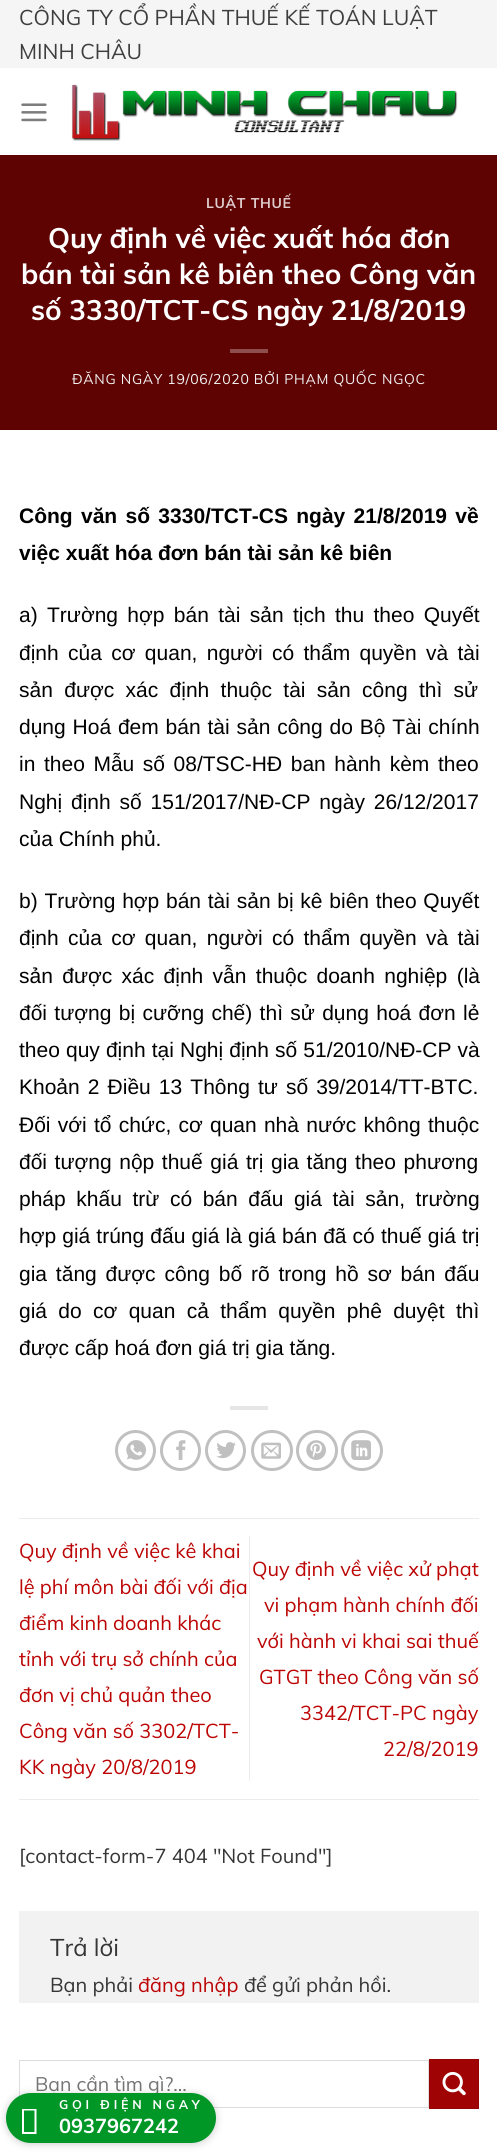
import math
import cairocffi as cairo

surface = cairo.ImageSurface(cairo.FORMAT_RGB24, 497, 2154)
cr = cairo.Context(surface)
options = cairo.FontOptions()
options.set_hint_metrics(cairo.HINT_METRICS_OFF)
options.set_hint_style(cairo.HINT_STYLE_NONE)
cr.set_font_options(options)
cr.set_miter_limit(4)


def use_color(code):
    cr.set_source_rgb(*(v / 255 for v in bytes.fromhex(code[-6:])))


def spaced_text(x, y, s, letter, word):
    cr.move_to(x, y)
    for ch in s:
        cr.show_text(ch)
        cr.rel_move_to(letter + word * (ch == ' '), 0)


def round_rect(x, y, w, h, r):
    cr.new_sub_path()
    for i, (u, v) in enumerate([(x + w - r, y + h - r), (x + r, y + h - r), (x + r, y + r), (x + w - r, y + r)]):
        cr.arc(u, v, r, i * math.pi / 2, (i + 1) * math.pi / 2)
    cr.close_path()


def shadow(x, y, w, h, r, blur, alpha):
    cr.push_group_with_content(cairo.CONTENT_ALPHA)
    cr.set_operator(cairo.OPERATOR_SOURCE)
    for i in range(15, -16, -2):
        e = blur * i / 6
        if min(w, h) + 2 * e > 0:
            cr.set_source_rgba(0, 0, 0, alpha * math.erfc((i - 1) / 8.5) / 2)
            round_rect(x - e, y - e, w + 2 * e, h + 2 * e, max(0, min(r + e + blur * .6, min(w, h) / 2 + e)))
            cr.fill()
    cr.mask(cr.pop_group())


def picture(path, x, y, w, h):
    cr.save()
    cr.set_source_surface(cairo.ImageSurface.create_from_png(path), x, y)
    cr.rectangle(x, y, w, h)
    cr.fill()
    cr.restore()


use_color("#ffffff")
cr.paint()
use_color("#f5f5f5")
cr.rectangle(0, 0, 497, 68)
cr.fill()
cr.select_font_face("Muli")
cr.set_font_size(21.25)
use_color("#3e3e3e")
cr.move_to(19, 25)
cr.show_text("CÔNG TY CỔ PHẦN THUẾ KẾ TOÁN LUẬT")
cr.move_to(19, 59)
cr.show_text("MINH CHÂU")
picture("img1.png", 21, 103, 26, 19)
picture("img2.png", 71, 84, 387, 57)
use_color("#5e0202")
cr.rectangle(0, 155, 497, 275)
cr.fill()
cr.select_font_face("Muli", cairo.FONT_SLANT_NORMAL, cairo.FONT_WEIGHT_BOLD)
cr.set_font_size(14)
use_color("#dfcccc")
spaced_text(206, 208, "LUẬT THUẾ", 0.7, 0)
cr.set_font_size(28)
use_color("#ffffff")
cr.move_to(48, 248)
cr.show_text("Quy định về việc xuất hóa đơn")
cr.move_to(21, 284)
cr.show_text("bán tài sản kê biên theo Công văn")
cr.move_to(31, 320)
cr.show_text("số 3330/TCT-CS ngày 21/8/2019")
use_color("#8e4e4e")
cr.rectangle(230, 349, 38, 4)
cr.fill()
cr.select_font_face("Muli")
cr.set_font_size(14)
use_color("#f1f1f1")
spaced_text(72, 384, "ĐĂNG NGÀY 19/06/2020 BỞI PHẠM QUỐC NGỌC", 0.7, 0)
cr.select_font_face("Liberation Sans", cairo.FONT_SLANT_NORMAL, cairo.FONT_WEIGHT_BOLD)
cr.set_font_size(21)
use_color("#000000")
spaced_text(19, 523, "Công văn số 3330/TCT-CS ngày 21/8/2019 về", 0, 2.5)
cr.move_to(19, 560)
cr.show_text("việc xuất hóa đơn bán tài sản kê biên")
cr.select_font_face("Liberation Sans")
spaced_text(19, 622, "a) Trường hợp bán tài sản tịch thu theo Quyết", 0, 3.5)
spaced_text(19, 660, "định của cơ quan, người có thẩm quyền và tài", 0, 3.5)
spaced_text(19, 697, "sản được xác định thuộc tài sản công thì sử", 0, 5.5)
spaced_text(19, 734, "dụng Hoá đem bán tài sản công do Bộ Tài chính", 0, 1)
spaced_text(19, 771, "in theo Mẫu số 08/TSC-HĐ ban hành kèm theo", 0, 2.75)
spaced_text(19, 809, "Nghị định số 151/2017/NĐ-CP ngày 26/12/2017", 0, 3)
cr.move_to(19, 846)
cr.show_text("của Chính phủ.")
spaced_text(19, 908, "b) Trường hợp bán tài sản bị kê biên theo Quyết", 0, 0.9)
spaced_text(19, 945, "định của cơ quan, người có thẩm quyền và tài", 0, 3.5)
spaced_text(19, 983, "sản được xác định vẫn thuộc doanh nghiệp (là", 0, 3.5)
spaced_text(19, 1020, "đối tượng bị cưỡng chế) thì sử dụng hoá đơn lẻ", 0, 1.5)
spaced_text(19, 1057, "theo quy định tại Nghị định số 51/2010/NĐ-CP và", 0, 0.25)
spaced_text(19, 1094, "Khoản 2 Điều 13 Thông tư số 39/2014/TT-BTC.", 0, 2.25)
spaced_text(19, 1132, "Đối với tổ chức, cơ quan nhà nước không thuộc", 0, 1.4)
spaced_text(19, 1169, "đối tượng nộp thuế giá trị gia tăng theo phương", 0, 1.75)
spaced_text(19, 1206, "pháp khấu trừ có bán đấu giá tài sản, trường", 0, 4.75)
spaced_text(19, 1243, "hợp giá trúng đấu giá là giá bán đã có thuế giá trị", 0, 0.25)
spaced_text(19, 1281, "gia tăng được công bố rõ trong hồ sơ bán đấu", 0, 3)
spaced_text(19, 1318, "giá do cơ quan cả thẩm quyền phê duyệt thì", 0, 5.5)
cr.move_to(19, 1355)
cr.show_text("được cấp hoá đơn giá trị gia tăng.")
use_color("#e6e6e6")
cr.rectangle(230, 1406, 38, 4)
cr.fill()
cr.arc(135.5, 1450.5, 19, 0, 2 * math.pi)
use_color("#c0c0c0")
cr.set_line_width(3)
cr.stroke()
picture("img3.png", 126, 1440, 20, 20)
cr.arc(180.5, 1450.5, 19, 0, 2 * math.pi)
cr.stroke()
picture("img4.png", 176, 1440, 10, 20)
cr.arc(225.5, 1450.5, 19, 0, 2 * math.pi)
cr.stroke()
picture("img5.png", 216, 1442, 20, 17)
round_rect(252.5, 1431.5, 39, 38, 19)
cr.stroke()
picture("img6.png", 261, 1442, 20, 17)
round_rect(297.5, 1431.5, 39, 38, 19)
cr.stroke()
picture("img7.png", 306, 1440, 20, 20)
round_rect(342.5, 1431.5, 39, 38, 19)
cr.stroke()
picture("img8.png", 351, 1440, 20, 20)
use_color("#ececec")
cr.rectangle(19, 1518, 460, 1)
cr.fill()
cr.rectangle(19, 1799, 460, 1)
cr.fill()
cr.select_font_face("Muli")
cr.set_font_size(20)
use_color("#bc0404")
cr.move_to(19, 1558)
cr.show_text("Quy định về việc kê khai")
cr.move_to(19, 1594)
cr.show_text("lệ phí môn bài đối với địa")
cr.move_to(19, 1630)
cr.show_text("điểm kinh doanh khác")
cr.move_to(19, 1666)
cr.show_text("tỉnh với trụ sở chính của")
cr.move_to(19, 1702)
cr.show_text("đơn vị chủ quản theo")
cr.move_to(19, 1738)
cr.show_text("Công văn số 3302/TCT-")
cr.move_to(19, 1774)
cr.show_text("KK ngày 20/8/2019")
use_color("#ececec")
cr.rectangle(249, 1536, 1, 245)
cr.fill()
use_color("#bc0404")
cr.move_to(252, 1576)
cr.show_text("Quy định về việc xử phạt")
cr.move_to(264, 1612)
cr.show_text("vi phạm hành chính đối")
cr.move_to(257, 1648)
cr.show_text("với hành vi khai sai thuế")
cr.move_to(259, 1684)
cr.show_text("GTGT theo Công văn số")
cr.move_to(300, 1720)
cr.show_text("3342/TCT-PC ngày")
cr.move_to(383, 1756)
cr.show_text("22/8/2019")
use_color("#353535")
cr.move_to(19, 1863)
cr.show_text("[contact-form-7 404 \"Not Found\"]")
use_color("#f2f2f2")
cr.rectangle(19, 1911, 460, 92)
cr.fill()
cr.set_font_size(24)
use_color("#353535")
cr.move_to(50, 1956)
cr.show_text("Trả lời")
cr.set_font_size(20)
cr.move_to(50, 1992)
cr.show_text("Bạn phải")
use_color("#bc0404")
cr.move_to(138, 1992)
cr.show_text("đăng nhập")
use_color("#353535")
cr.move_to(244, 1992)
cr.show_text("để gửi phản hồi.")
cr.rectangle(19.5, 2060.5, 409, 47)
use_color("#dddddd")
cr.set_line_width(1)
cr.stroke()
cr.set_font_size(19.5)
use_color("#757575")
cr.move_to(35, 2091)
cr.show_text("Bạn cần tìm gì?...")
use_color("#9f0303")
cr.rectangle(429.5, 2059.5, 49, 49)
cr.fill_preserve()
use_color("#970303")
cr.stroke()
picture("img9.png", 442, 2071, 24, 25)
use_color("#000000")
shadow(6, 2094, 210, 50, 25, 4, 0.2)
use_color("#009727")
round_rect(6, 2093, 210, 50, 25)
cr.fill()
cr.select_font_face("Muli", cairo.FONT_SLANT_NORMAL, cairo.FONT_WEIGHT_BOLD)
cr.set_font_size(12.5)
use_color("#ffffff")
spaced_text(59, 2109, "GỌI ĐIỆN NGAY", 3.75, 0)
cr.new_path()
cr.move_to(22, 2134)
cr.line_to(22, 2109)
cr.line_to(36.5, 2109)
cr.line_to(36.5, 2134)
cr.close_path()
cr.move_to(24, 2132)
cr.line_to(34.5, 2132)
cr.line_to(34.5, 2110.5)
cr.line_to(24, 2110.5)
cr.close_path()
cr.fill()
cr.set_font_size(20)
cr.move_to(59, 2133)
cr.show_text("0937967242")
surface.write_to_png("result.png")
